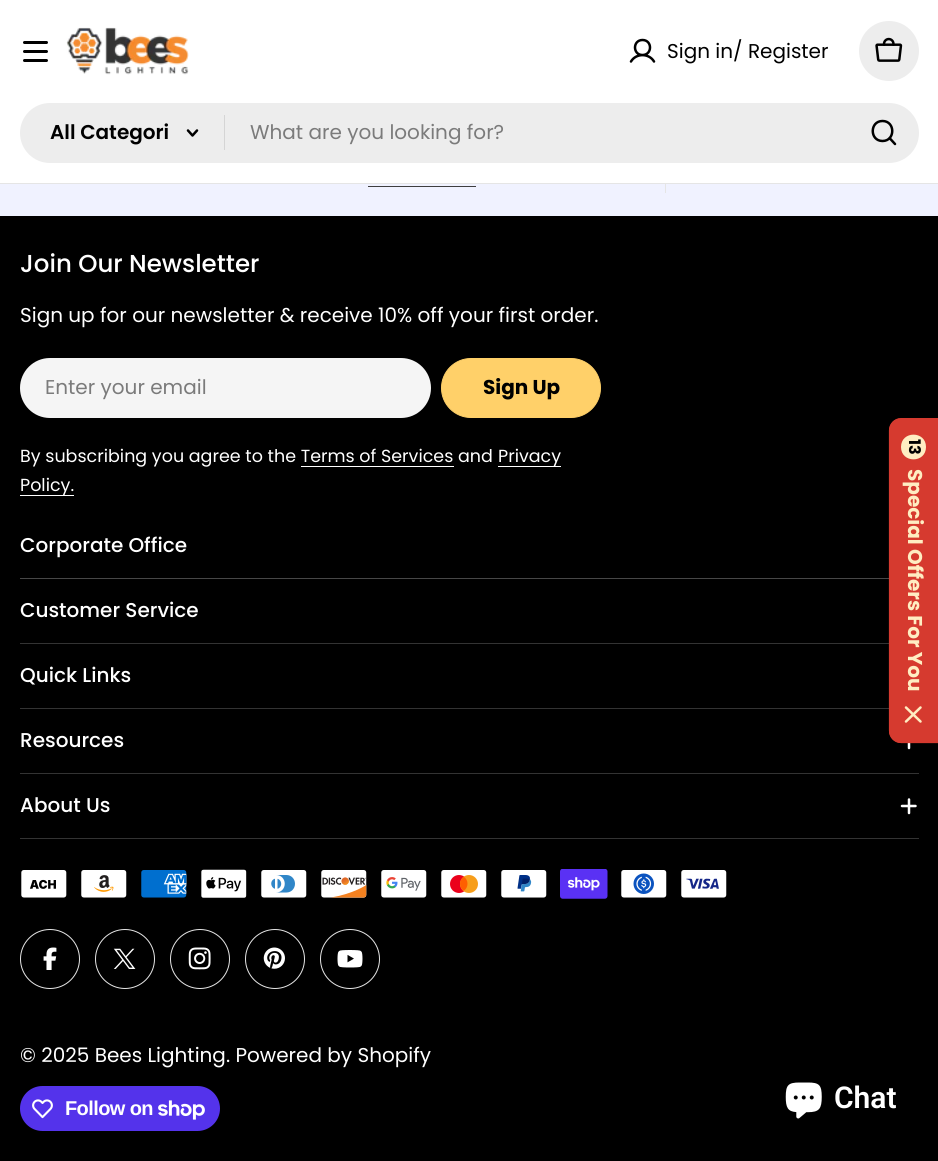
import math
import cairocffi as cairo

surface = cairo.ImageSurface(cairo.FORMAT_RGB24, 938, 1161)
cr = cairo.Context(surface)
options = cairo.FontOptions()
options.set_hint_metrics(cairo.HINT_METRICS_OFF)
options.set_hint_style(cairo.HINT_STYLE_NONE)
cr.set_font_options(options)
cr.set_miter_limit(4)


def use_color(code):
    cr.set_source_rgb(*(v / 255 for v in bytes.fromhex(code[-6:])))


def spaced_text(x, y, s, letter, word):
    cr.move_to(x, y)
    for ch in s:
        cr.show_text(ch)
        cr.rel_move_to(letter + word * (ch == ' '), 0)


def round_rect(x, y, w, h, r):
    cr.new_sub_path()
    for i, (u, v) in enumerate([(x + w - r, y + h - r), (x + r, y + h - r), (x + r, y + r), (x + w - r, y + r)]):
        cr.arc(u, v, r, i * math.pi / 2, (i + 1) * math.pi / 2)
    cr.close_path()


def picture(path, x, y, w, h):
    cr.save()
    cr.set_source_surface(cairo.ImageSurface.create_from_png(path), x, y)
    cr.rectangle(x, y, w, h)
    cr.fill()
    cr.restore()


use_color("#f0f2ff")
cr.paint()
use_color("#ffffff")
cr.rectangle(0, 0, 938, 183)
cr.fill()
use_color("#000000")
round_rect(23, 50, 25, 3, 1.5)
cr.fill()
round_rect(23, 41, 25, 3, 1.5)
cr.fill()
round_rect(23, 59, 25, 3, 1.5)
cr.fill()
picture("img1.png", 66, 27, 123, 48)
cr.new_path()
cr.move_to(642.5, 55)
cr.curve_to(652.5, 55, 652.5, 40, 642.5, 40)
cr.curve_to(632.5, 40, 632.5, 55, 642.5, 55)
cr.close_path()
cr.move_to(631, 61.5)
cr.curve_to(636, 53, 649, 53, 654, 61.5)
cr.set_line_width(2.5)
cr.set_line_cap(cairo.LINE_CAP_ROUND)
cr.set_line_join(cairo.LINE_JOIN_ROUND)
cr.stroke()
cr.select_font_face("Poppins")
cr.set_font_size(20)
cr.move_to(667, 58)
cr.show_text("Sign in/ Register")
use_color("#ededed")
cr.new_path()
cr.arc(889, 51, 30, 0, 2 * math.pi)
cr.fill()
picture("img2.png", 875, 37, 28, 25)
round_rect(20, 103, 899, 60, 30)
cr.fill()
cr.select_font_face("Poppins SemiBold")
use_color("#000000")
cr.move_to(50, 139)
cr.show_text("All Categori")
cr.new_path()
cr.move_to(197, 130.5)
cr.line_to(192.5, 135.5)
cr.line_to(188, 130.5)
cr.stroke()
use_color("#d5d5d5")
cr.rectangle(224, 115, 1, 35)
cr.fill()
cr.select_font_face("Poppins")
use_color("#7b7b7b")
cr.move_to(250, 139)
cr.show_text("What are you looking for?")
cr.new_path()
cr.move_to(882.5, 141)
cr.curve_to(895.5, 141, 895.5, 121, 882.5, 121)
cr.curve_to(869.5, 121, 869.5, 141, 882.5, 141)
cr.close_path()
cr.move_to(889.5, 138)
cr.line_to(895, 144)
use_color("#000000")
cr.stroke()
use_color("#e5e5e5")
cr.rectangle(0, 183, 938, 1)
cr.fill()
use_color("#3e3e3e")
cr.rectangle(368, 186, 108, 1)
cr.fill()
use_color("#e5e5e5")
cr.rectangle(665, 184, 1, 9)
cr.fill()
use_color("#000000")
cr.rectangle(0, 216, 938, 945)
cr.fill()
cr.select_font_face("Poppins Medium")
cr.set_font_size(24.5)
use_color("#ffffff")
cr.move_to(20, 272)
cr.show_text("Join Our Newsletter")
cr.select_font_face("Poppins")
cr.set_font_size(20)
cr.move_to(20, 322)
cr.show_text("Sign up for our newsletter & receive 10% off your first order.")
use_color("#f5f5f5")
round_rect(20, 358, 411, 60, 30)
cr.fill()
use_color("#7b7b7b")
cr.move_to(45, 394)
cr.show_text("Enter your email")
use_color("#ffd069")
round_rect(441.5, 358.5, 159, 59, 29.5)
cr.fill_preserve()
cr.set_line_width(1)
cr.set_line_cap(cairo.LINE_CAP_BUTT)
cr.set_line_join(cairo.LINE_JOIN_MITER)
cr.stroke()
cr.select_font_face("Poppins", cairo.FONT_SLANT_NORMAL, cairo.FONT_WEIGHT_BOLD)
use_color("#000000")
cr.move_to(483, 394)
cr.show_text("Sign Up")
cr.select_font_face("Poppins")
cr.set_font_size(17.5)
use_color("#ffffff")
cr.move_to(20, 462)
cr.show_text("By subscribing you agree to the Terms of Services and")
cr.rectangle(498, 466, 63, 1)
cr.fill()
cr.move_to(498, 462)
cr.show_text("Privacy")
cr.rectangle(301, 466, 153, 1)
cr.fill()
cr.rectangle(20, 495, 54, 1)
cr.fill()
cr.move_to(20, 491)
cr.show_text("Policy.")
cr.select_font_face("Poppins Medium")
cr.set_font_size(20)
cr.move_to(20, 552)
cr.show_text("Corporate Office")
use_color("#474747")
cr.rectangle(20, 578, 869, 1)
cr.fill()
use_color("#333333")
cr.rectangle(20, 643, 869, 1)
cr.fill()
use_color("#ffffff")
cr.move_to(20, 617)
cr.show_text("Customer Service")
use_color("#333333")
cr.rectangle(20, 708, 869, 1)
cr.fill()
use_color("#ffffff")
cr.move_to(20, 682)
cr.show_text("Quick Links")
use_color("#333333")
cr.rectangle(20, 773, 899, 1)
cr.fill()
use_color("#ffffff")
cr.move_to(20, 747)
cr.show_text("Resources")
cr.new_path()
cr.move_to(909, 734.5)
cr.line_to(909, 748)
cr.set_line_width(2.5)
cr.set_line_cap(cairo.LINE_CAP_ROUND)
cr.set_line_join(cairo.LINE_JOIN_ROUND)
cr.stroke()
use_color("#333333")
cr.rectangle(20, 838, 899, 1)
cr.fill()
use_color("#ffffff")
cr.move_to(20, 812)
cr.show_text("About Us")
cr.new_path()
cr.move_to(902, 806)
cr.line_to(915.5, 806)
cr.move_to(909, 799.5)
cr.line_to(909, 813)
cr.stroke()
picture("img3.png", 21, 870, 46, 28)
picture("img4.png", 81, 870, 46, 28)
picture("img5.png", 141, 870, 46, 28)
picture("img6.png", 201, 869, 46, 29)
picture("img7.png", 261, 870, 46, 28)
picture("img8.png", 321, 870, 46, 28)
picture("img9.png", 381, 870, 46, 28)
picture("img10.png", 441, 870, 46, 28)
picture("img11.png", 501, 870, 46, 28)
picture("img12.png", 560, 869, 48, 30)
picture("img13.png", 621, 870, 46, 28)
picture("img14.png", 681, 870, 46, 28)
cr.arc(50, 959, 29.5, 0, 2 * math.pi)
use_color("#e5e5e5")
cr.set_line_width(1)
cr.set_line_cap(cairo.LINE_CAP_BUTT)
cr.set_line_join(cairo.LINE_JOIN_MITER)
cr.stroke()
picture("img15.png", 43, 947, 14, 23)
cr.arc(125, 959, 29.5, 0, 2 * math.pi)
cr.stroke()
picture("img16.png", 113, 948, 23, 21)
cr.arc(200, 959, 29.5, 0, 2 * math.pi)
cr.stroke()
picture("img17.png", 188, 947, 23, 23)
cr.arc(275, 959, 29.5, 0, 2 * math.pi)
cr.stroke()
picture("img18.png", 263, 947, 22, 22)
cr.arc(350, 959, 29.5, 0, 2 * math.pi)
cr.stroke()
picture("img19.png", 337, 950, 26, 18)
cr.select_font_face("Poppins")
use_color("#ffffff")
cr.move_to(20, 1062)
cr.show_text("© 2025 Bees Lighting. Powered by Shopify")
use_color("#5433eb")
round_rect(20, 1086, 200, 45, 22.5)
cr.fill()
picture("img20.png", 32, 1099, 21, 20)
cr.select_font_face("Liberation Sans", cairo.FONT_SLANT_NORMAL, cairo.FONT_WEIGHT_BOLD)
use_color("#ffffff")
spaced_text(65, 1115, "Follow on", -0.6, 0)
picture("img21.png", 158, 1100, 47, 20)
use_color("#d63a2f")
cr.new_path()
cr.move_to(889, 731)
cr.line_to(889, 431)
cr.curve_to(889, 424, 894, 418, 901, 418)
cr.line_to(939, 418)
cr.line_to(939, 743)
cr.line_to(901, 743)
cr.curve_to(894, 743, 889, 737, 889, 731)
cr.close_path()
cr.fill()
cr.new_path()
cr.move_to(889.5, 730.5)
cr.line_to(889.5, 430.5)
cr.curve_to(889.5, 424, 894.5, 419, 901, 419)
cr.line_to(938, 419)
cr.line_to(938, 742.5)
cr.line_to(901, 742.5)
cr.curve_to(894.5, 742.5, 889.5, 737, 889.5, 730.5)
cr.close_path()
cr.set_line_width(1.2)
cr.stroke()
use_color("#ffedc2")
cr.new_path()
cr.move_to(926, 447)
cr.curve_to(926, 463.5, 901, 463.5, 901, 447)
cr.curve_to(901, 430.5, 926, 430.5, 926, 447)
cr.close_path()
cr.fill()
cr.select_font_face("Poppins", cairo.FONT_SLANT_NORMAL, cairo.FONT_WEIGHT_BOLD)
cr.set_font_size(16)
use_color("#000000")
cr.save()
cr.translate(909, 439)
cr.rotate(90 * math.pi / 180)
cr.move_to(0, 0)
cr.show_text("13")
cr.restore()
cr.set_font_size(20)
use_color("#ffedc2")
cr.save()
cr.translate(908, 469)
cr.rotate(90 * math.pi / 180)
cr.move_to(0, 0)
cr.show_text("Special Offers For You")
cr.restore()
cr.new_path()
cr.move_to(920.5, 721.5)
cr.line_to(906, 707.5)
cr.move_to(906, 721.5)
cr.line_to(920.5, 707.5)
cr.set_line_width(2.5)
cr.set_line_cap(cairo.LINE_CAP_ROUND)
cr.set_line_join(cairo.LINE_JOIN_ROUND)
cr.stroke()
picture("img22.png", 785, 1082, 37, 37)
cr.select_font_face("Roboto SemiBold")
cr.set_font_size(30)
use_color("#ffffff")
cr.move_to(834, 1108)
cr.show_text("Chat")
surface.write_to_png("result.png")
